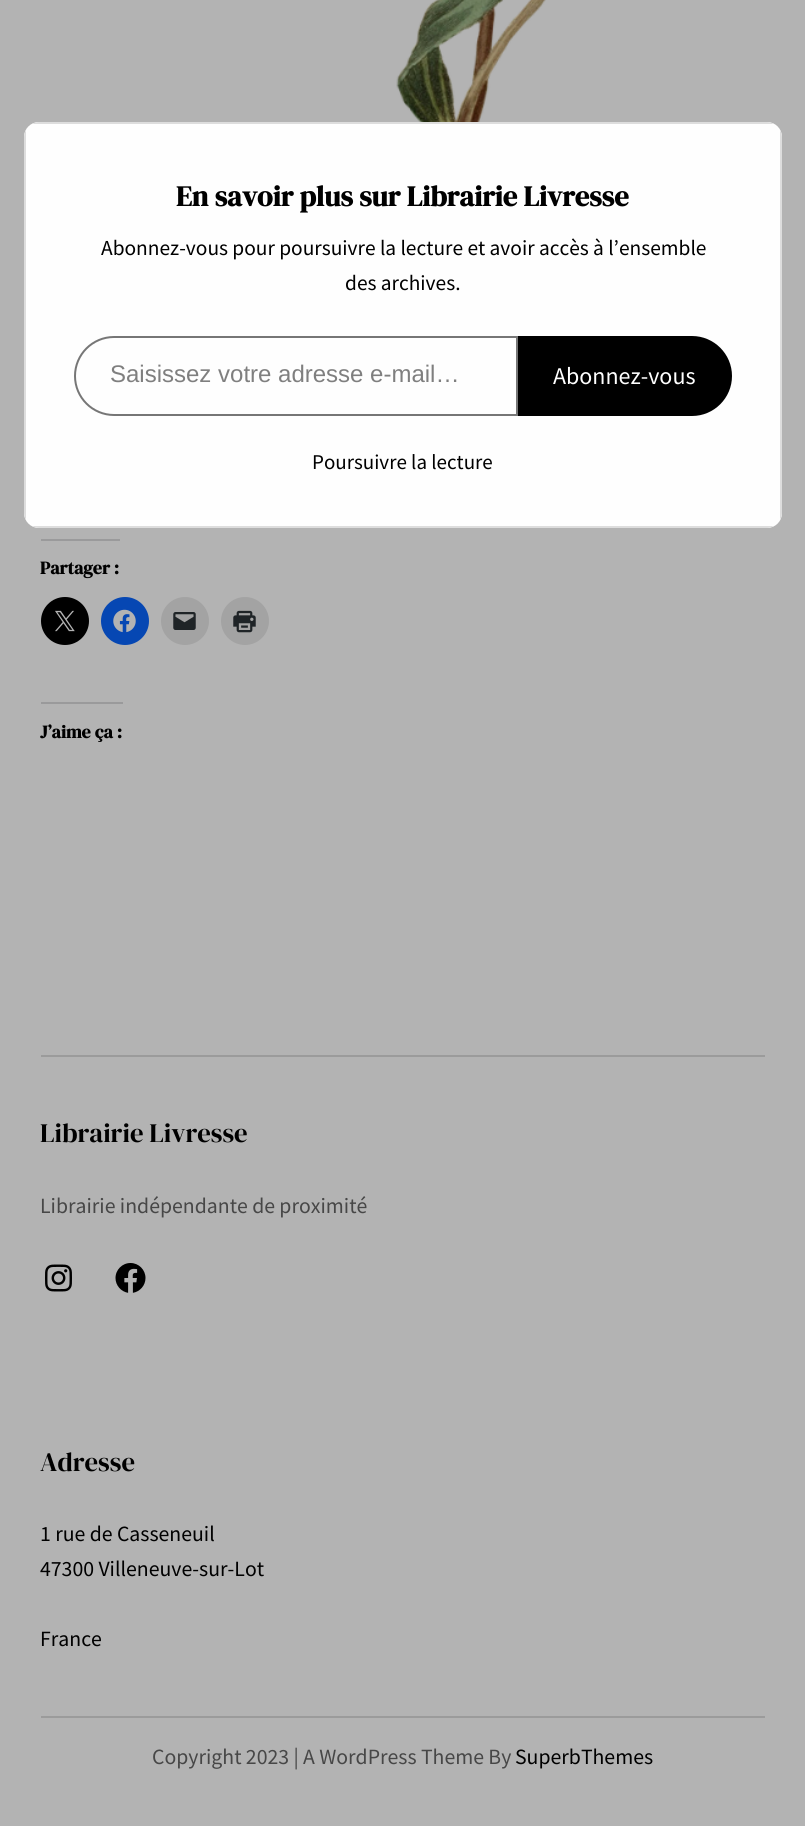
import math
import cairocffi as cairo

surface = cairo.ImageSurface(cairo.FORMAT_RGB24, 805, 1826)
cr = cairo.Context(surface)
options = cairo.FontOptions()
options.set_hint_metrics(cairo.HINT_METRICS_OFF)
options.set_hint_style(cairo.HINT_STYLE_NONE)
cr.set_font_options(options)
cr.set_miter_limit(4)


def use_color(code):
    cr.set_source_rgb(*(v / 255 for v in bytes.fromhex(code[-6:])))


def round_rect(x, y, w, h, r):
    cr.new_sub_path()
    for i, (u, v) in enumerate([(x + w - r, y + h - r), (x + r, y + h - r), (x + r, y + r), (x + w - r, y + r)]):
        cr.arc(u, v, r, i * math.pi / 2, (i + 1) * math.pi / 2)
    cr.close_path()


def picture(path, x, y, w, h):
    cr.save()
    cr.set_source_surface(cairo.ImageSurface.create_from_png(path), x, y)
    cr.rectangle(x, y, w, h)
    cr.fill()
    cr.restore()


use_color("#b3b3b3")
cr.paint()
use_color("#fefefe")
round_rect(24, 122, 758, 406, 15)
cr.fill()
use_color("#dddddd")
cr.set_fill_rule(cairo.FILL_RULE_EVEN_ODD)
cr.new_path()
cr.move_to(24, 137)
cr.line_to(24, 513)
cr.curve_to(24, 516, 25, 518, 26, 520)
cr.line_to(26, 130)
cr.curve_to(25, 132, 24, 134, 24, 137)
cr.close_path()
cr.move_to(39, 122)
cr.curve_to(36, 122, 34, 123, 32, 124)
cr.line_to(774, 124)
cr.curve_to(772, 123, 770, 122, 767, 122)
cr.close_path()
cr.move_to(782, 137)
cr.curve_to(782, 134, 781, 132, 780, 130)
cr.line_to(780, 520)
cr.curve_to(781, 518, 782, 516, 782, 513)
cr.close_path()
cr.move_to(767, 528)
cr.curve_to(770, 528, 772, 527, 774, 526)
cr.line_to(32, 526)
cr.curve_to(34, 527, 36, 528, 39, 528)
cr.close_path()
cr.fill()
cr.select_font_face("DM Serif Display", cairo.FONT_SLANT_NORMAL, cairo.FONT_WEIGHT_BOLD)
cr.set_font_size(28.6)
use_color("#000000")
cr.move_to(176, 206)
cr.show_text("En savoir plus sur Librairie Livresse")
cr.select_font_face("Source Sans Pro")
cr.set_font_size(21.4)
cr.move_to(101, 255)
cr.show_text("Abonnez-vous pour poursuivre la lecture et avoir accès à l’ensemble")
cr.move_to(345, 290)
cr.show_text("des archives.")
cr.new_path()
cr.move_to(114, 337)
cr.line_to(517, 337)
cr.line_to(517, 415)
cr.line_to(114, 415)
cr.curve_to(92.5, 415, 75, 397.5, 75, 376)
cr.curve_to(75, 354.5, 92.5, 337, 114, 337)
cr.close_path()
use_color("#767676")
cr.stroke()
cr.select_font_face("Liberation Sans")
cr.set_font_size(24)
use_color("#7f7f7f")
cr.move_to(110, 382)
cr.show_text("Saisissez votre adresse e-mail…")
use_color("#000000")
cr.new_path()
cr.move_to(518, 336)
cr.line_to(692, 336)
cr.curve_to(714, 336, 732, 354, 732, 376)
cr.curve_to(732, 398, 714, 416, 692, 416)
cr.line_to(518, 416)
cr.close_path()
cr.fill()
cr.select_font_face("Source Sans Pro")
use_color("#ffffff")
cr.move_to(553, 384)
cr.show_text("Abonnez-vous")
cr.set_font_size(21)
use_color("#000000")
cr.move_to(312, 469)
cr.show_text("Poursuivre la lecture")
picture("img1.png", 396, 0, 150, 122)
use_color("#9a9a9b")
cr.rectangle(41, 539, 79, 2)
cr.fill()
cr.select_font_face("DM Serif Display", cairo.FONT_SLANT_NORMAL, cairo.FONT_WEIGHT_BOLD)
cr.set_font_size(18)
use_color("#000000")
cr.move_to(40, 574)
cr.show_text("Partager :")
cr.new_path()
cr.arc(65, 621, 24, 0, 2 * math.pi)
cr.fill()
picture("img2.png", 55, 610, 20, 22)
use_color("#0647b3")
cr.arc(125, 621, 24, 0, 2 * math.pi)
cr.fill()
picture("img3.png", 113, 609, 23, 24)
use_color("#a3a3a3")
cr.arc(185, 621, 24, 0, 2 * math.pi)
cr.fill()
picture("img4.png", 173, 612, 23, 18)
cr.arc(245, 621, 24, 0, 2 * math.pi)
cr.fill()
picture("img5.png", 233, 610, 23, 23)
use_color("#9a9a9b")
cr.rectangle(41, 702, 82, 2)
cr.fill()
use_color("#000000")
cr.move_to(40, 738)
cr.show_text("J’aime ça :")
use_color("#9b9b9b")
cr.rectangle(41, 1055, 724, 2)
cr.fill()
cr.select_font_face("DM Serif Display")
cr.set_font_size(26.75)
use_color("#000000")
cr.move_to(40, 1142)
cr.show_text("Librairie Livresse")
cr.select_font_face("Source Sans Pro")
cr.set_font_size(21.75)
use_color("#474747")
cr.move_to(40, 1213)
cr.show_text("Librairie indépendante de proximité")
picture("img6.png", 45, 1264, 27, 28)
picture("img7.png", 115, 1263, 31, 30)
cr.select_font_face("DM Serif Display")
cr.set_font_size(26.75)
use_color("#000000")
cr.move_to(40, 1471)
cr.show_text("Adresse")
cr.select_font_face("Source Sans Pro")
cr.set_font_size(21.75)
cr.move_to(40, 1541)
cr.show_text("1 rue de Casseneuil")
cr.move_to(40, 1576)
cr.show_text("47300 Villeneuve-sur-Lot")
cr.move_to(40, 1646)
cr.show_text("France")
use_color("#9b9b9b")
cr.rectangle(41, 1716, 724, 2)
cr.fill()
use_color("#474747")
cr.move_to(152, 1764)
cr.show_text("Copyright 2023 | A WordPress Theme By")
use_color("#000000")
cr.move_to(515, 1764)
cr.show_text("SuperbThemes")
surface.write_to_png("result.png")
